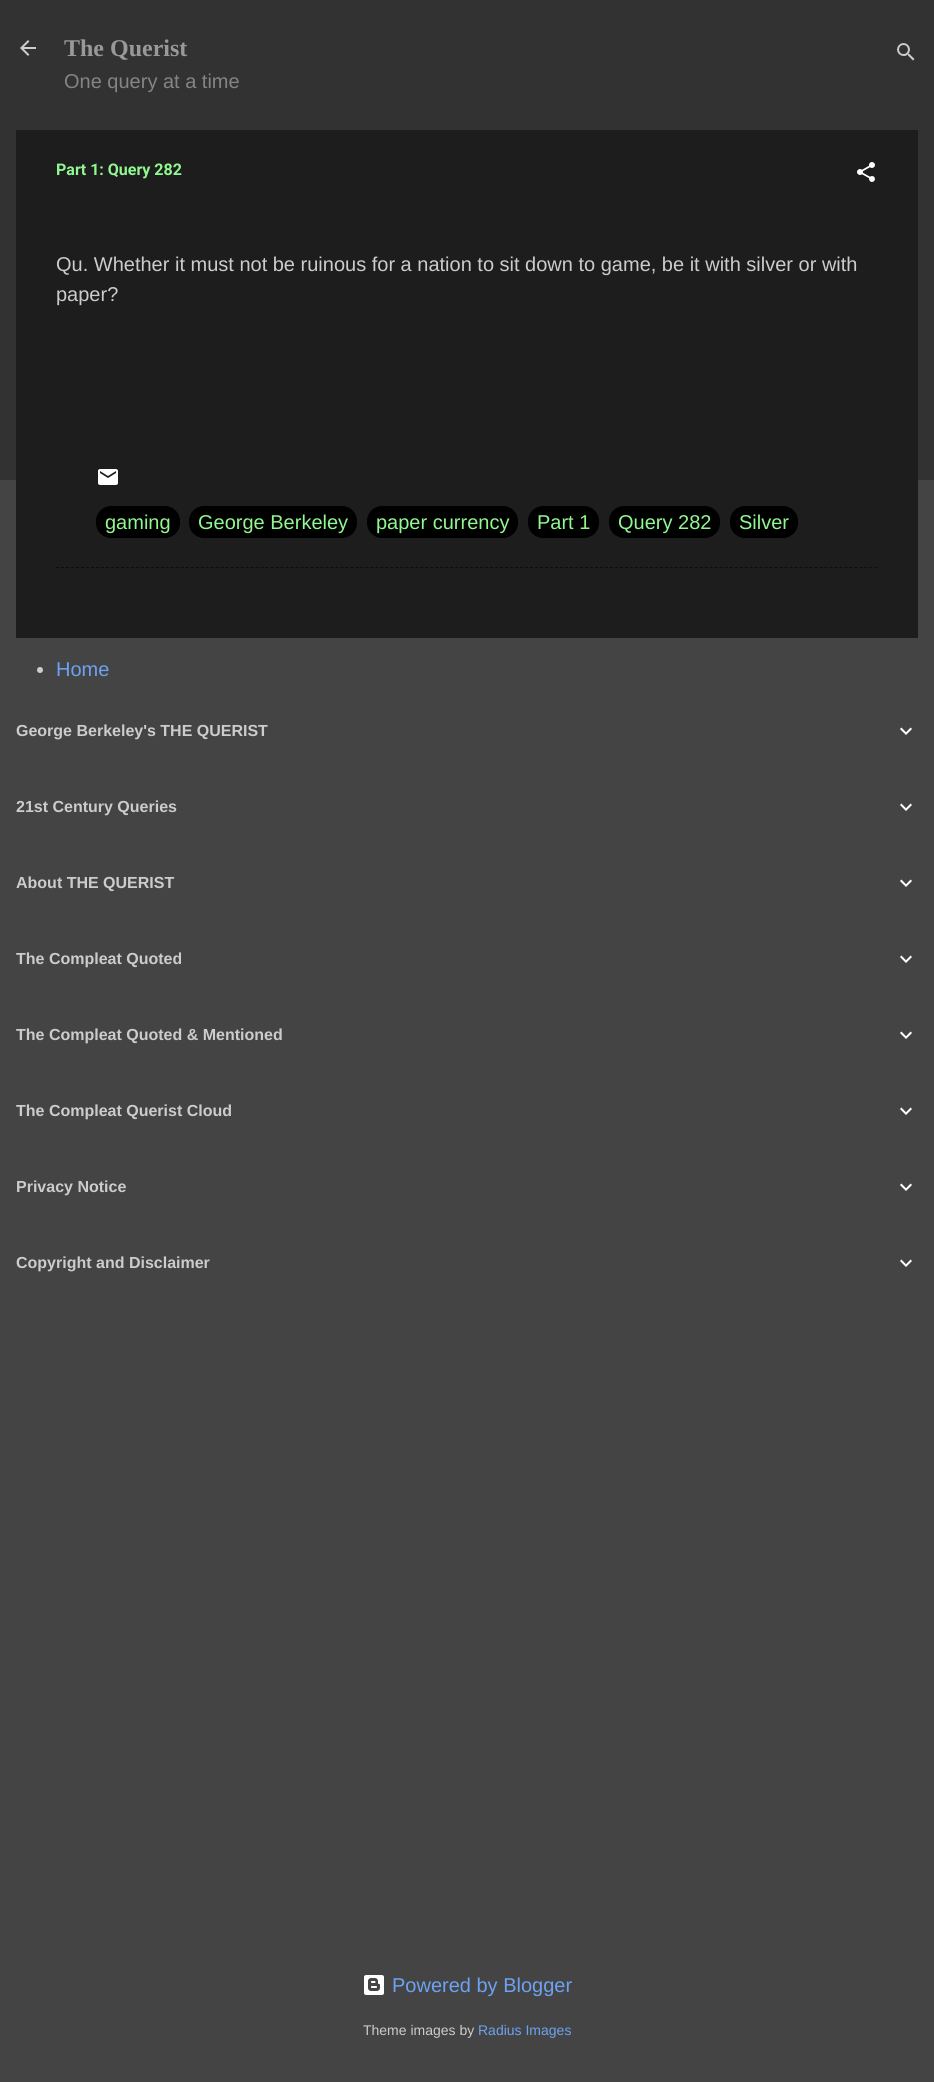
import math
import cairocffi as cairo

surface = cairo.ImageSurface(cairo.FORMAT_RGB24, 934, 2082)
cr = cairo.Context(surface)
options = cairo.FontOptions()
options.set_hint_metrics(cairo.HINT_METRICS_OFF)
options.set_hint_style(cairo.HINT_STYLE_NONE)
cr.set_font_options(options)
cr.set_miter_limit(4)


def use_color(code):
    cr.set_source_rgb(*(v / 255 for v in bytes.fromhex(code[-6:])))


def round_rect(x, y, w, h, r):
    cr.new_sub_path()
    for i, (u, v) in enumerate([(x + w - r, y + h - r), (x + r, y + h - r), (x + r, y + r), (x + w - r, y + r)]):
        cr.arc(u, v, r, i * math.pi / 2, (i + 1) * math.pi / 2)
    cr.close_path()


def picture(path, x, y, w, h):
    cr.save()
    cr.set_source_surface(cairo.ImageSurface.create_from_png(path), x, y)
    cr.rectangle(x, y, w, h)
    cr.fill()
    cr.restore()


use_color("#444444")
cr.paint()
use_color("#323232")
cr.rectangle(0, 0, 934, 480)
cr.fill()
picture("img1.png", 20, 40, 16, 16)
cr.select_font_face("Liberation Serif", cairo.FONT_SLANT_NORMAL, cairo.FONT_WEIGHT_BOLD)
cr.set_font_size(24)
use_color("#999999")
cr.move_to(64, 56)
cr.show_text("The Querist")
cr.select_font_face("Liberation Sans")
cr.set_font_size(20)
use_color("#848484")
cr.move_to(64, 88)
cr.show_text("One query at a time")
picture("img2.png", 897, 43, 18, 18)
use_color("#1d1d1d")
cr.rectangle(16, 130, 902, 508)
cr.fill()
cr.select_font_face("Roboto", cairo.FONT_SLANT_NORMAL, cairo.FONT_WEIGHT_BOLD)
cr.set_font_size(16)
use_color("#91f891")
cr.move_to(56, 175)
cr.show_text("Part 1: Query 282")
picture("img3.png", 857, 162, 18, 20)
cr.select_font_face("Liberation Sans")
cr.set_font_size(20)
use_color("#cccccc")
cr.move_to(56, 271)
cr.show_text("Qu. Whether it must not be ruinous for a nation to sit down to game, be it with silver or with")
cr.move_to(56, 301)
cr.show_text("paper?")
picture("img4.png", 98, 469, 20, 16)
use_color("#000000")
round_rect(96.5, 506.5, 83, 31, 14.5)
cr.fill_preserve()
cr.set_line_width(1)
cr.stroke()
use_color("#91f891")
cr.move_to(105, 529)
cr.show_text("gaming")
use_color("#000000")
round_rect(189.5, 506.5, 167, 31, 14.5)
cr.fill_preserve()
cr.stroke()
use_color("#91f891")
cr.move_to(198, 529)
cr.show_text("George Berkeley")
use_color("#000000")
round_rect(367.5, 506.5, 150, 31, 14.5)
cr.fill_preserve()
cr.stroke()
use_color("#91f891")
cr.move_to(376, 529)
cr.show_text("paper currency")
use_color("#000000")
round_rect(528.5, 506.5, 70, 31, 14.5)
cr.fill_preserve()
cr.stroke()
use_color("#91f891")
cr.move_to(537, 529)
cr.show_text("Part 1")
use_color("#000000")
round_rect(609.5, 506.5, 110, 31, 14.5)
cr.fill_preserve()
cr.stroke()
use_color("#91f891")
cr.move_to(618, 529)
cr.show_text("Query 282")
use_color("#000000")
round_rect(730.5, 506.5, 67, 31, 14.5)
cr.fill_preserve()
cr.stroke()
use_color("#91f891")
cr.move_to(739, 529)
cr.show_text("Silver")
cr.new_path()
cr.move_to(56, 567.5)
cr.line_to(878, 567.5)
use_color("#0d0d0d")
cr.set_dash([3, 1.99])
cr.stroke()
use_color("#cccccc")
cr.arc(40, 670, 3, 0, 2 * math.pi)
cr.fill()
use_color("#6da2f2")
cr.move_to(56, 676)
cr.show_text("Home")
cr.select_font_face("Liberation Sans", cairo.FONT_SLANT_NORMAL, cairo.FONT_WEIGHT_BOLD)
cr.set_font_size(16)
use_color("#cccccc")
cr.move_to(16, 736)
cr.show_text("George Berkeley's THE QUERIST")
picture("img5.png", 900, 727, 12, 8)
cr.move_to(16, 812)
cr.show_text("21st Century Queries")
picture("img5.png", 900, 803, 12, 8)
cr.move_to(16, 888)
cr.show_text("About THE QUERIST")
picture("img5.png", 900, 879, 12, 8)
cr.move_to(16, 964)
cr.show_text("The Compleat Quoted")
picture("img5.png", 900, 955, 12, 8)
cr.move_to(16, 1040)
cr.show_text("The Compleat Quoted & Mentioned")
picture("img5.png", 900, 1031, 12, 8)
cr.move_to(16, 1116)
cr.show_text("The Compleat Querist Cloud")
picture("img5.png", 900, 1107, 12, 8)
cr.move_to(16, 1192)
cr.show_text("Privacy Notice")
picture("img5.png", 900, 1183, 12, 8)
cr.move_to(16, 1268)
cr.show_text("Copyright and Disclaimer")
picture("img5.png", 900, 1259, 12, 8)
picture("img6.png", 364, 1975, 20, 20)
cr.select_font_face("Liberation Sans")
cr.set_font_size(20)
use_color("#6da2f2")
cr.move_to(392, 1992)
cr.show_text("Powered by Blogger")
cr.set_font_size(14)
use_color("#cccccc")
cr.move_to(363, 2035)
cr.show_text("Theme images by")
use_color("#6da2f2")
cr.move_to(478, 2035)
cr.show_text("Radius Images")
surface.write_to_png("result.png")
